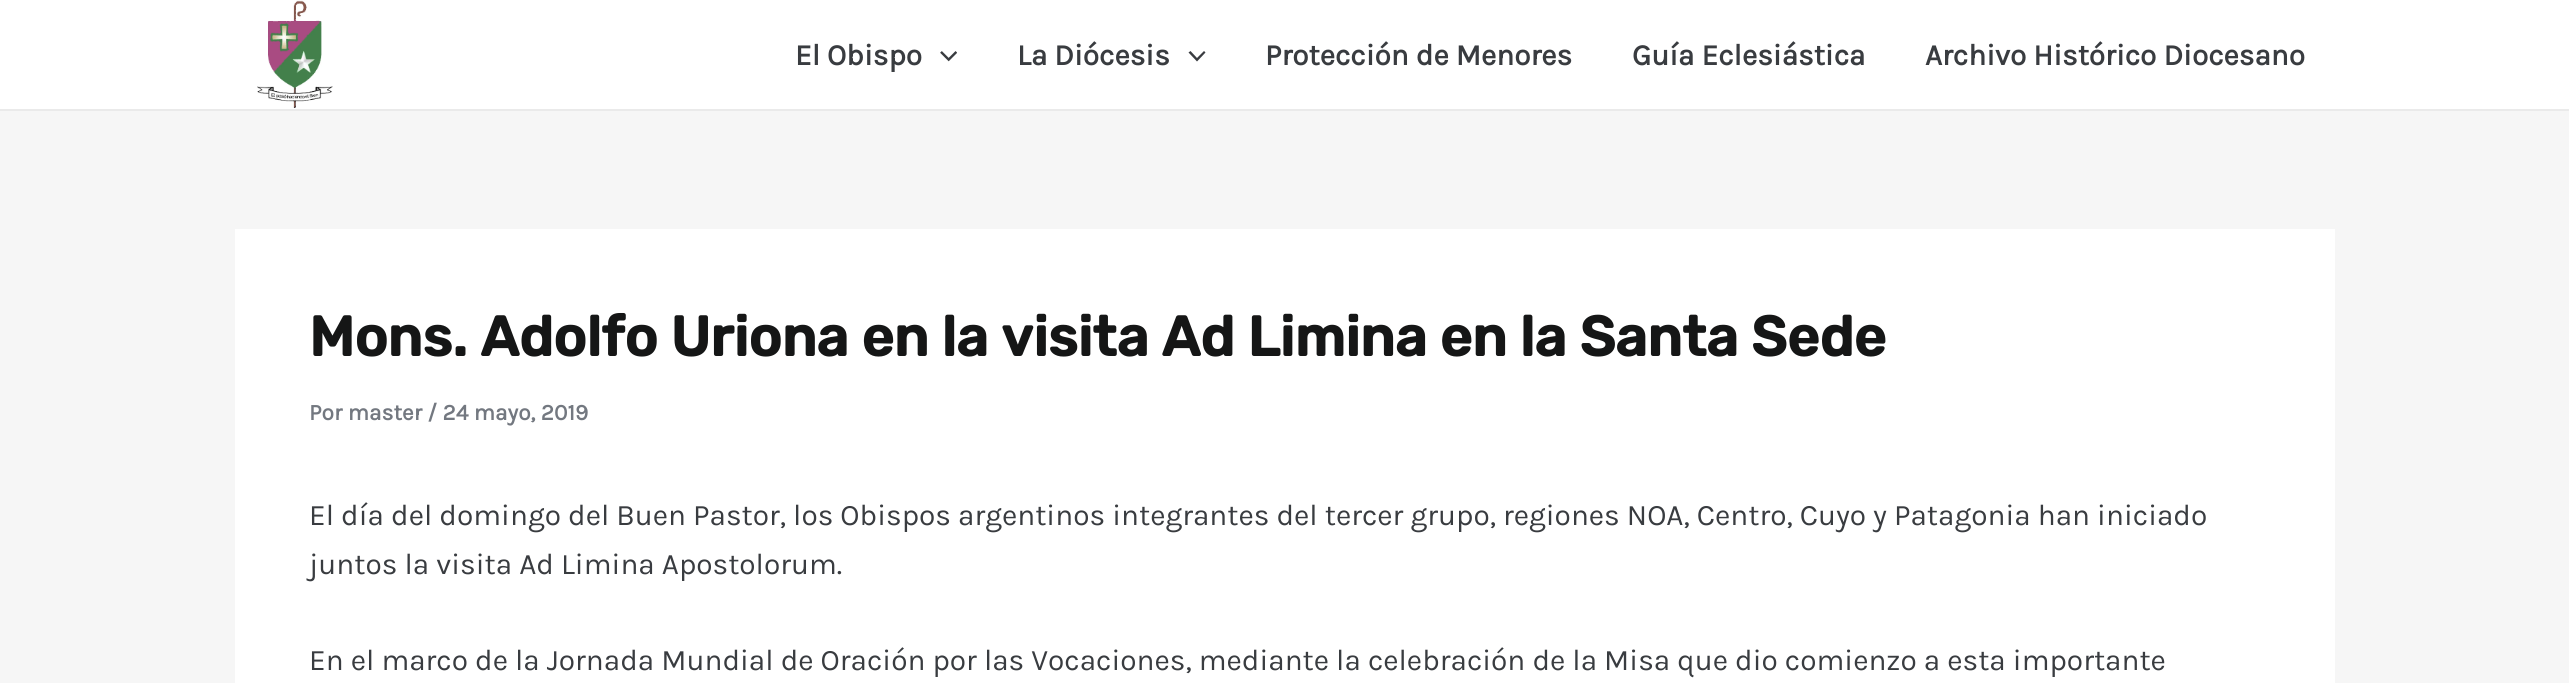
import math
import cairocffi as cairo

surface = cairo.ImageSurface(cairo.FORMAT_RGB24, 2569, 683)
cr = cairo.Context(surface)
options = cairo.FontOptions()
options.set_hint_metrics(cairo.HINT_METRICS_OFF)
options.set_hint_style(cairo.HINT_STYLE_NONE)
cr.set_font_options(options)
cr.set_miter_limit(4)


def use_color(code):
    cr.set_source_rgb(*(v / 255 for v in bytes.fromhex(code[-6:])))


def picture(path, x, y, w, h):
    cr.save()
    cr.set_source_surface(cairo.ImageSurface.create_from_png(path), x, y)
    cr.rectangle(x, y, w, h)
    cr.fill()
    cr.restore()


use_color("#f6f6f6")
cr.paint()
use_color("#ffffff")
cr.rectangle(0, 0, 2569, 109)
cr.fill()
use_color("#eaeaea")
cr.rectangle(0, 109, 2569, 2)
cr.fill()
picture("img1.png", 257, 0, 76, 108)
cr.select_font_face("Karla", cairo.FONT_SLANT_NORMAL, cairo.FONT_WEIGHT_BOLD)
cr.set_font_size(29.75)
use_color("#393c40")
cr.move_to(795, 65)
cr.show_text("El Obispo")
picture("img2.png", 940, 51, 17, 11)
cr.move_to(1017, 65)
cr.show_text("La Diócesis")
cr.new_path()
cr.move_to(1188.5, 52.5)
cr.line_to(1197, 61.5)
cr.line_to(1205.5, 52.5)
cr.line_to(1204, 51)
cr.line_to(1197, 58)
cr.line_to(1190.5, 51)
cr.close_path()
cr.fill()
cr.move_to(1265, 65)
cr.show_text("Protección de Menores")
cr.move_to(1632, 65)
cr.show_text("Guía Eclesiástica")
cr.move_to(1925, 65)
cr.show_text("Archivo Histórico Diocesano")
use_color("#ffffff")
cr.rectangle(235, 229, 2100, 454)
cr.fill()
cr.select_font_face("Rubik", cairo.FONT_SLANT_NORMAL, cairo.FONT_WEIGHT_BOLD)
cr.set_font_size(56)
use_color("#151616")
cr.move_to(309, 356)
cr.show_text("Mons. Adolfo Uriona en la visita Ad Limina en la Santa Sede")
cr.select_font_face("Karla", cairo.FONT_SLANT_NORMAL, cairo.FONT_WEIGHT_BOLD)
cr.set_font_size(22.75)
use_color("#737880")
cr.move_to(309, 420)
cr.show_text("Por master / 24 mayo, 2019")
cr.select_font_face("Karla")
cr.set_font_size(29.75)
use_color("#393c40")
cr.move_to(309, 525)
cr.show_text("El día del domingo del Buen Pastor, los Obispos argentinos integrantes del tercer grupo, regiones NOA, Centro, Cuyo y Patagonia han iniciado")
cr.move_to(309, 574)
cr.show_text("juntos la visita Ad Limina Apostolorum.")
cr.move_to(309, 670)
cr.show_text("En el marco de la Jornada Mundial de Oración por las Vocaciones, mediante la celebración de la Misa que dio comienzo a esta importante")
surface.write_to_png("result.png")
